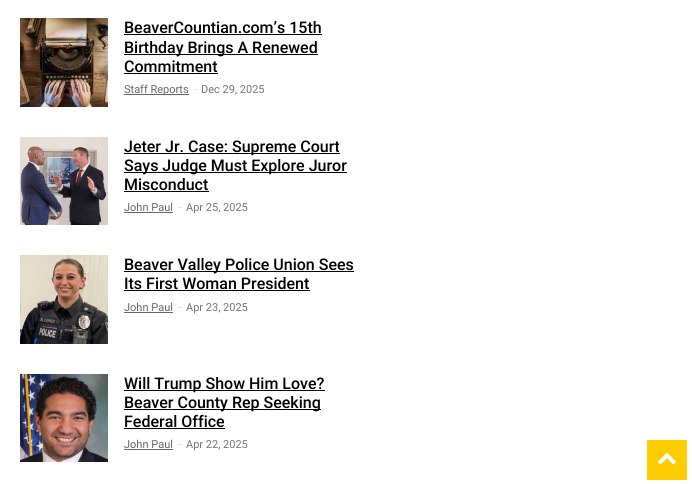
import math
import cairocffi as cairo

surface = cairo.ImageSurface(cairo.FORMAT_RGB24, 692, 484)
cr = cairo.Context(surface)
options = cairo.FontOptions()
options.set_hint_metrics(cairo.HINT_METRICS_OFF)
options.set_hint_style(cairo.HINT_STYLE_NONE)
cr.set_font_options(options)
cr.set_miter_limit(4)


def use_color(code):
    cr.set_source_rgb(*(v / 255 for v in bytes.fromhex(code[-6:])))


def picture(path, x, y, w, h):
    cr.save()
    cr.set_source_surface(cairo.ImageSurface.create_from_png(path), x, y)
    cr.rectangle(x, y, w, h)
    cr.fill()
    cr.restore()


use_color("#ffffff")
cr.paint()
picture("img1.png", 20, 18, 88, 89)
cr.select_font_face("Roboto Medium")
cr.set_font_size(16)
use_color("#000000")
cr.move_to(124, 33)
cr.show_text("BeaverCountian.com’s 15th")
cr.rectangle(124, 34, 198, 1)
cr.fill()
cr.rectangle(124, 54, 194, 1)
cr.fill()
cr.move_to(124, 53)
cr.show_text("Birthday Brings A Renewed")
cr.move_to(124, 72)
cr.show_text("Commitment")
cr.rectangle(124, 73, 94, 1)
cr.fill()
use_color("#666666")
cr.rectangle(124, 94, 65, 1)
cr.fill()
cr.select_font_face("Roboto")
cr.set_font_size(11)
cr.move_to(124, 93)
cr.show_text("Staff Reports")
use_color("#cccccc")
cr.move_to(194, 93)
cr.show_text("-")
use_color("#767676")
cr.move_to(201, 93)
cr.show_text("Dec 29, 2025")
picture("img2.png", 20, 137, 88, 88)
use_color("#000000")
cr.rectangle(124, 153, 216, 1)
cr.fill()
cr.select_font_face("Roboto Medium")
cr.set_font_size(16)
cr.move_to(124, 152)
cr.show_text("Jeter Jr. Case: Supreme Court")
cr.rectangle(124, 172, 223, 1)
cr.fill()
cr.move_to(124, 171)
cr.show_text("Says Judge Must Explore Juror")
cr.move_to(124, 190)
cr.show_text("Misconduct")
cr.rectangle(124, 191, 85, 1)
cr.fill()
cr.select_font_face("Roboto")
cr.set_font_size(11)
use_color("#666666")
cr.move_to(124, 211)
cr.show_text("John Paul")
cr.rectangle(124, 212, 49, 1)
cr.fill()
use_color("#cccccc")
cr.move_to(178, 211)
cr.show_text("-")
use_color("#767676")
cr.move_to(186, 211)
cr.show_text("Apr 25, 2025")
picture("img3.png", 20, 255, 88, 89)
use_color("#000000")
cr.rectangle(124, 271, 230, 1)
cr.fill()
cr.select_font_face("Roboto Medium")
cr.set_font_size(16)
cr.move_to(124, 270)
cr.show_text("Beaver Valley Police Union Sees")
cr.move_to(124, 289)
cr.show_text("Its First Woman President")
cr.rectangle(124, 290, 186, 1)
cr.fill()
cr.select_font_face("Roboto")
cr.set_font_size(11)
use_color("#666666")
cr.move_to(124, 311)
cr.show_text("John Paul")
cr.rectangle(124, 312, 49, 1)
cr.fill()
use_color("#cccccc")
cr.move_to(178, 311)
cr.show_text("-")
use_color("#767676")
cr.move_to(186, 311)
cr.show_text("Apr 23, 2025")
picture("img4.png", 20, 374, 88, 88)
use_color("#000000")
cr.rectangle(124, 390, 201, 1)
cr.fill()
cr.select_font_face("Roboto Medium")
cr.set_font_size(16)
cr.move_to(124, 389)
cr.show_text("Will Trump Show Him Love?")
cr.rectangle(124, 409, 197, 1)
cr.fill()
cr.move_to(124, 408)
cr.show_text("Beaver County Rep Seeking")
cr.move_to(124, 427)
cr.show_text("Federal Office")
cr.rectangle(124, 428, 101, 1)
cr.fill()
cr.select_font_face("Roboto")
cr.set_font_size(11)
use_color("#666666")
cr.move_to(124, 448)
cr.show_text("John Paul")
cr.rectangle(124, 449, 49, 1)
cr.fill()
use_color("#cccccc")
cr.move_to(178, 448)
cr.show_text("-")
use_color("#767676")
cr.move_to(186, 448)
cr.show_text("Apr 22, 2025")
use_color("#ffcc00")
cr.rectangle(647, 440, 40, 40)
cr.fill()
picture("img5.png", 658, 452, 18, 13)
surface.write_to_png("result.png")
